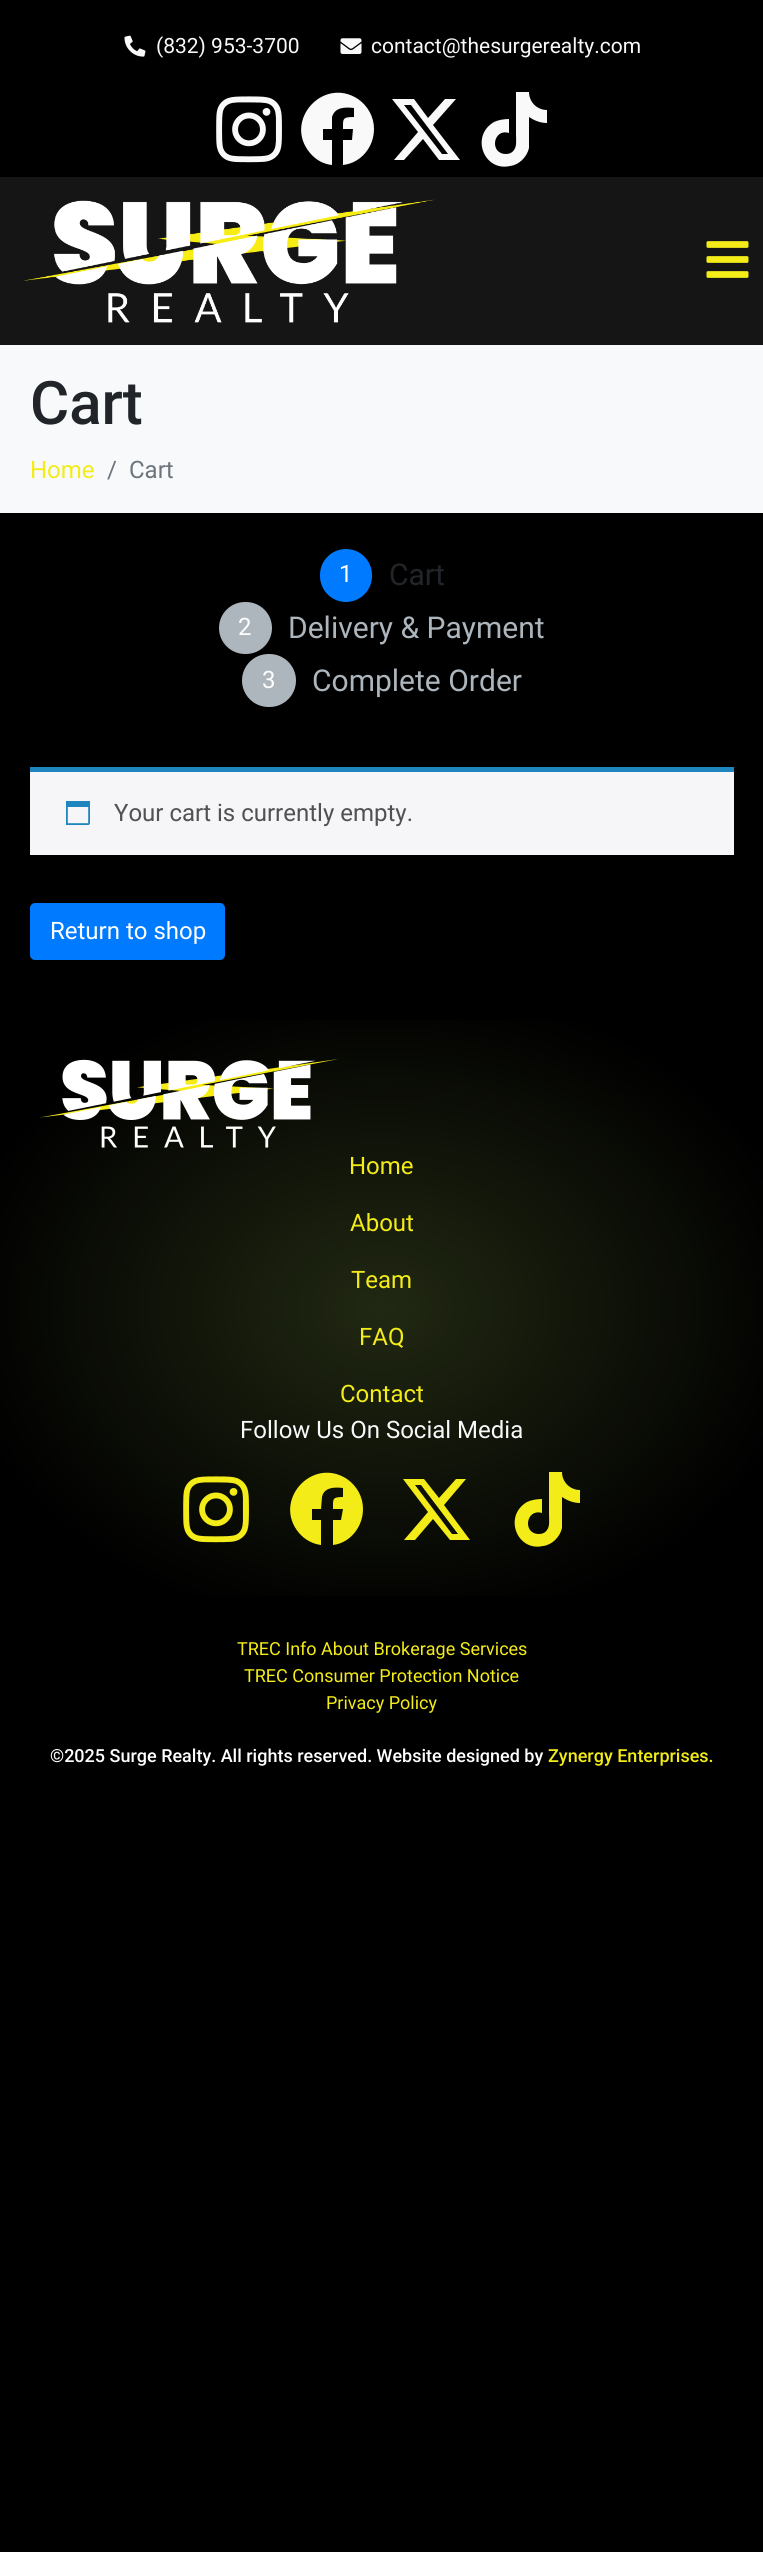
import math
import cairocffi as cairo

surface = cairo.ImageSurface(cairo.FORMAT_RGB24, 763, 2552)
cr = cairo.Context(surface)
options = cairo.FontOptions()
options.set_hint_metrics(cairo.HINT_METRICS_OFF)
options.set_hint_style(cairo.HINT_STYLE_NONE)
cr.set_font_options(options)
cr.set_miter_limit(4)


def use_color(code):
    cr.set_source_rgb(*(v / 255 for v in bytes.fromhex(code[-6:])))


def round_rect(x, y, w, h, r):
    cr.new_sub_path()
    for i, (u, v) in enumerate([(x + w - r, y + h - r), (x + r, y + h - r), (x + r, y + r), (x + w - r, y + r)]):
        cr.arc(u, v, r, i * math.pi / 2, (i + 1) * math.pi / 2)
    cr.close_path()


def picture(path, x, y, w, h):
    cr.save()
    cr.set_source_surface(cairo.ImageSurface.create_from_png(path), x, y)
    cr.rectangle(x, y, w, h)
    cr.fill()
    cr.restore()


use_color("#000000")
cr.paint()
picture("img1.png", 124, 35, 22, 22)
cr.select_font_face("Roboto")
cr.set_font_size(21)
use_color("#f9f9f9")
cr.move_to(156, 53)
cr.show_text("(832) 953-3700")
picture("img2.png", 340, 38, 22, 16)
cr.move_to(371, 53)
cr.show_text("contact@thesurgerealty.com")
picture("img3.png", 216, 96, 66, 67)
cr.new_path()
cr.move_to(374, 129)
cr.curve_to(374, 147, 361, 163, 343, 165)
cr.line_to(343, 140)
cr.line_to(352, 140)
cr.line_to(353, 129)
cr.line_to(343, 129)
cr.curve_to(343, 119, 342, 117, 354, 117)
cr.line_to(354, 108)
cr.curve_to(345, 107, 335, 107, 332, 117)
cr.line_to(332, 129)
cr.line_to(323, 129)
cr.line_to(323, 140)
cr.line_to(332, 140)
cr.line_to(332, 165)
cr.curve_to(323, 164, 316, 160, 310, 153)
cr.curve_to(283, 121, 323, 76, 358, 99)
cr.curve_to(368, 106, 374, 117, 374, 129)
cr.close_path()
cr.fill()
cr.new_path()
cr.move_to(445, 99)
cr.line_to(456, 99)
cr.line_to(433, 125)
cr.line_to(460, 160)
cr.line_to(439, 160)
cr.line_to(423, 139)
cr.line_to(404, 160)
cr.line_to(394, 160)
cr.line_to(418, 132)
cr.line_to(392, 99)
cr.line_to(414, 99)
cr.line_to(428, 118)
cr.close_path()
cr.move_to(442, 154)
cr.line_to(448, 154)
cr.line_to(411, 105)
cr.line_to(404, 105)
cr.close_path()
cr.fill()
cr.new_path()
cr.move_to(547, 123)
cr.curve_to(541, 123, 535, 121, 529, 117)
cr.line_to(529, 148)
cr.curve_to(527, 157, 519, 165, 510, 166)
cr.curve_to(484, 172, 470, 136, 494, 122)
cr.curve_to(498, 120, 504, 119, 509, 119)
cr.line_to(509, 133)
cr.curve_to(493, 128, 489, 154, 506, 154)
cr.curve_to(509, 154, 512, 153, 514, 150)
cr.curve_to(517, 146, 516, 140, 516, 134)
cr.line_to(516, 92)
cr.line_to(529, 92)
cr.curve_to(529, 102, 537, 110, 547, 110)
cr.close_path()
cr.fill()
use_color("#151515")
cr.rectangle(0, 177, 763, 168)
cr.fill()
picture("img4.png", 23, 199, 412, 124)
picture("img5.png", 706, 241, 43, 37)
use_color("#f8f9fa")
cr.rectangle(0, 345, 763, 168)
cr.fill()
cr.select_font_face("Roboto Medium")
cr.set_font_size(60)
use_color("#212529")
cr.move_to(30, 424)
cr.show_text("Cart")
cr.select_font_face("Roboto")
cr.set_font_size(24)
use_color("#f3ec19")
cr.move_to(30, 478)
cr.show_text("Home")
use_color("#6c757d")
cr.move_to(107, 478)
cr.show_text("/")
cr.move_to(129, 478)
cr.show_text("Cart")
use_color("#007bff")
round_rect(320, 549, 52, 53, 26)
cr.fill()
use_color("#ffffff")
cr.move_to(339, 582)
cr.show_text("1")
cr.set_font_size(30)
use_color("#212529")
cr.move_to(389, 585)
cr.show_text("Cart")
use_color("#adb5bd")
round_rect(219, 602, 53, 52, 26)
cr.fill()
cr.set_font_size(24)
use_color("#ffffff")
cr.move_to(238, 635)
cr.show_text("2")
cr.set_font_size(30)
use_color("#adb5bd")
cr.move_to(288, 638)
cr.show_text("Delivery & Payment")
round_rect(242, 654, 54, 53, 26.5)
cr.fill()
cr.set_font_size(24)
use_color("#ffffff")
cr.move_to(262, 688)
cr.show_text("3")
cr.set_font_size(30)
use_color("#adb5bd")
cr.move_to(312, 691)
cr.show_text("Complete Order")
use_color("#f6f5f8")
cr.rectangle(30, 772, 704, 83)
cr.fill()
use_color("#1e85be")
cr.rectangle(30, 767, 704, 5)
cr.fill()
picture("img6.png", 66, 801, 24, 24)
cr.set_font_size(24)
use_color("#515151")
cr.move_to(114, 821)
cr.show_text("Your cart is currently empty.")
use_color("#007bff")
round_rect(31, 904, 193, 55, 4)
cr.fill_preserve()
cr.stroke()
use_color("#ffffff")
cr.move_to(50, 939)
cr.show_text("Return to shop")
gradient = cairo.RadialGradient(0, 0, 0, 0, 0, 1)
gradient.set_matrix(cairo.Matrix(1 / 540, 0, 0, 1 / 407, -1 * 382 / 540, -1 * 1308 / 407))
gradient.add_color_stop_rgba(0, 0.129, 0.157, 0.071, 1)
gradient.add_color_stop_rgba(0.8, 0, 0, 0, 1)
cr.set_source(gradient)
cr.rectangle(0, 1020, 763, 576)
cr.fill()
picture("img7.png", 40, 1059, 298, 89)
use_color("#f3ec19")
cr.move_to(349, 1174)
cr.show_text("Home")
cr.move_to(350, 1231)
cr.show_text("About")
cr.move_to(351, 1288)
cr.show_text("Team")
cr.move_to(359, 1345)
cr.show_text("FAQ")
cr.move_to(340, 1402)
cr.show_text("Contact")
use_color("#f9f9f9")
cr.move_to(240, 1438)
cr.show_text("Follow Us On Social Media")
picture("img8.png", 183, 1476, 66, 67)
use_color("#f3ec19")
cr.new_path()
cr.move_to(363, 1509)
cr.curve_to(363, 1527, 350, 1543, 333, 1545)
cr.line_to(333, 1520)
cr.line_to(341, 1520)
cr.line_to(343, 1509)
cr.line_to(333, 1509)
cr.curve_to(333, 1499, 332, 1497, 343, 1497)
cr.line_to(343, 1488)
cr.curve_to(335, 1487, 324, 1487, 322, 1497)
cr.line_to(321, 1509)
cr.line_to(312, 1509)
cr.line_to(312, 1520)
cr.line_to(321, 1520)
cr.line_to(321, 1545)
cr.curve_to(313, 1544, 305, 1540, 299, 1533)
cr.curve_to(272, 1501, 312, 1456, 347, 1479)
cr.curve_to(357, 1486, 363, 1497, 363, 1509)
cr.close_path()
cr.fill()
cr.new_path()
cr.move_to(456, 1479)
cr.line_to(466, 1479)
cr.line_to(444, 1505)
cr.line_to(470, 1540)
cr.line_to(450, 1540)
cr.line_to(433, 1519)
cr.line_to(415, 1540)
cr.line_to(404, 1540)
cr.line_to(428, 1512)
cr.line_to(403, 1479)
cr.line_to(424, 1479)
cr.line_to(439, 1498)
cr.close_path()
cr.move_to(452, 1534)
cr.line_to(458, 1534)
cr.line_to(421, 1485)
cr.line_to(415, 1485)
cr.close_path()
cr.fill()
cr.new_path()
cr.move_to(580, 1503)
cr.curve_to(574, 1503, 568, 1501, 562, 1497)
cr.line_to(562, 1528)
cr.curve_to(560, 1537, 552, 1545, 543, 1546)
cr.curve_to(517, 1552, 503, 1516, 527, 1502)
cr.curve_to(531, 1500, 537, 1499, 542, 1499)
cr.line_to(542, 1513)
cr.curve_to(526, 1508, 522, 1534, 539, 1534)
cr.curve_to(542, 1534, 545, 1533, 547, 1530)
cr.curve_to(550, 1526, 549, 1520, 549, 1514)
cr.line_to(549, 1472)
cr.line_to(562, 1472)
cr.curve_to(562, 1482, 570, 1490, 580, 1490)
cr.close_path()
cr.fill()
cr.set_font_size(18)
cr.move_to(237, 1655)
cr.show_text("TREC Info About Brokerage Services")
cr.move_to(244, 1682)
cr.show_text("TREC Consumer Protection Notice")
cr.move_to(326, 1709)
cr.show_text("Privacy Policy")
cr.select_font_face("Roboto Medium")
use_color("#ffffff")
cr.move_to(50, 1762)
cr.show_text("©2025 Surge Realty. All rights reserved. Website designed by")
use_color("#f3ec19")
cr.move_to(548, 1762)
cr.show_text("Zynergy Enterprises.")
surface.write_to_png("result.png")
